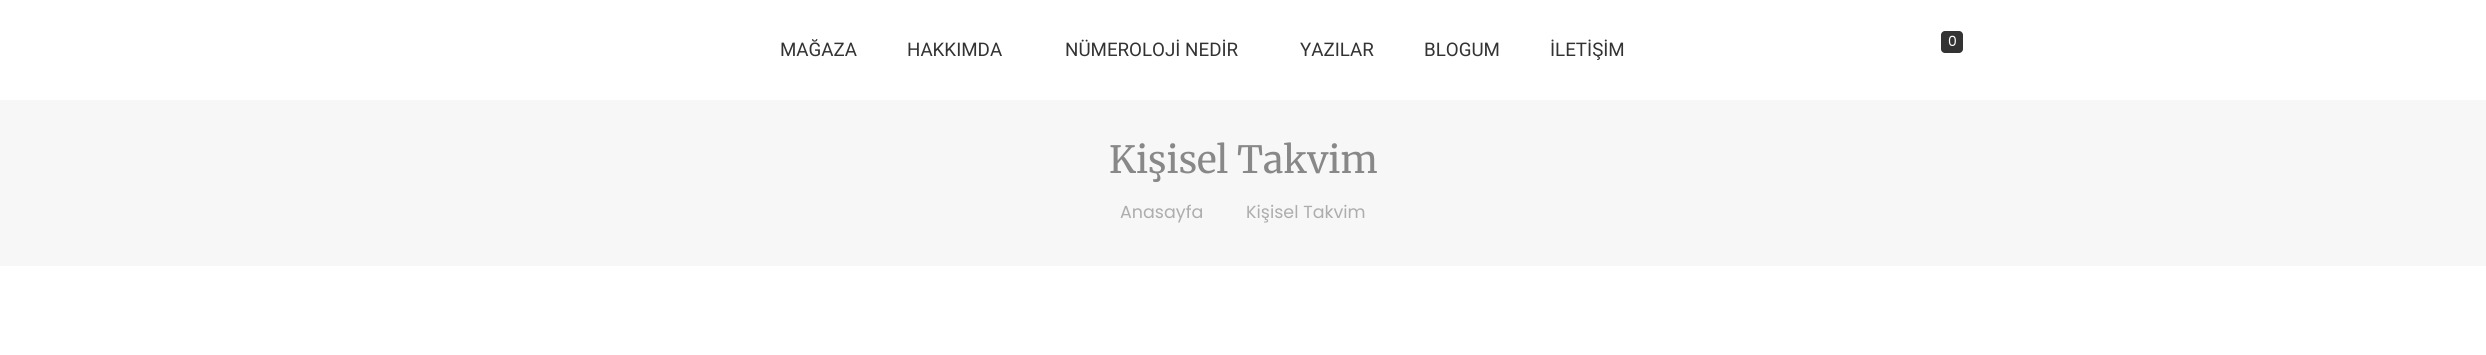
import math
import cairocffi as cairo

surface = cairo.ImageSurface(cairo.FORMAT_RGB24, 2486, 355)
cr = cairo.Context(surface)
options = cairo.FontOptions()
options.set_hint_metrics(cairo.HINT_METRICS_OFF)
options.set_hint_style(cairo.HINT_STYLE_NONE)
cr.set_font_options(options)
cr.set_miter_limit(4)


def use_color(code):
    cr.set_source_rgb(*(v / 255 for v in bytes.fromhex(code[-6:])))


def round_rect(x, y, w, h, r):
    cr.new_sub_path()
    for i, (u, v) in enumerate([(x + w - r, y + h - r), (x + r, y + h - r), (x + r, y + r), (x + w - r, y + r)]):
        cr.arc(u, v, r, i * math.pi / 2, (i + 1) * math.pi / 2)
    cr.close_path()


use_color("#ffffff")
cr.paint()
cr.select_font_face("Roboto")
cr.set_font_size(18.75)
use_color("#333333")
cr.move_to(780, 56)
cr.show_text("MAĞAZA")
cr.move_to(907, 56)
cr.show_text("HAKKIMDA")
cr.move_to(1065, 56)
cr.show_text("NÜMEROLOJİ NEDİR")
cr.move_to(1300, 56)
cr.show_text("YAZILAR")
cr.move_to(1424, 56)
cr.show_text("BLOGUM")
cr.move_to(1550, 56)
cr.show_text("İLETİŞİM")
round_rect(1941, 31, 22, 22, 4)
cr.fill()
cr.select_font_face("Poppins")
cr.set_font_size(14)
use_color("#ffffff")
cr.move_to(1948, 46)
cr.show_text("0")
use_color("#f7f7f7")
cr.rectangle(0, 100, 2486, 166)
cr.fill()
cr.select_font_face("Merriweather")
cr.set_font_size(37.5)
use_color("#888888")
cr.move_to(1109, 173)
cr.show_text("Kişisel Takvim")
cr.select_font_face("Poppins")
cr.set_font_size(17.5)
use_color("#adadad")
cr.move_to(1120, 218)
cr.show_text("Anasayfa")
cr.move_to(1246, 218)
cr.show_text("Kişisel Takvim")
surface.write_to_png("result.png")
